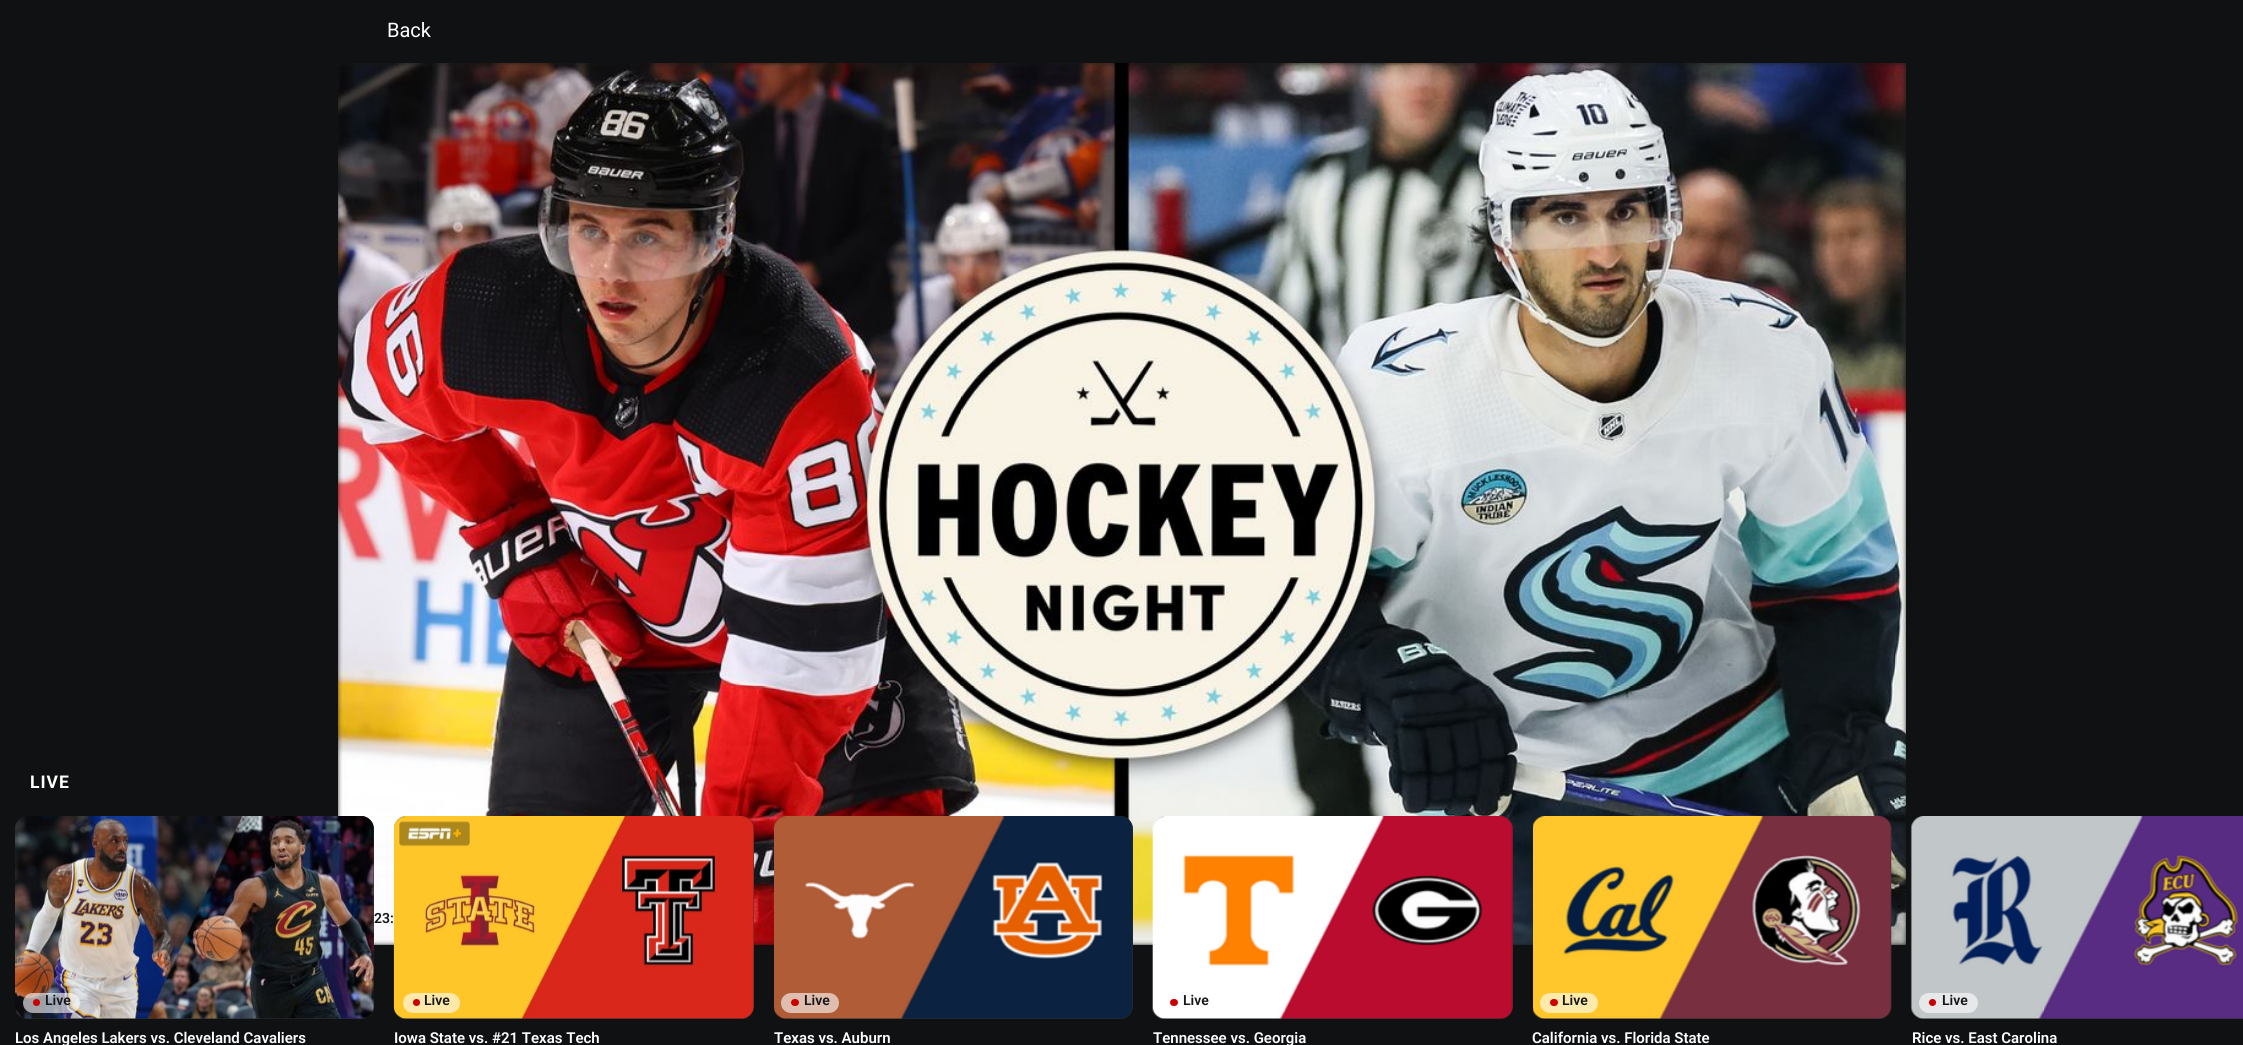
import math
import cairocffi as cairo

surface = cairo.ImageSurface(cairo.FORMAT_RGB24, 2243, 1045)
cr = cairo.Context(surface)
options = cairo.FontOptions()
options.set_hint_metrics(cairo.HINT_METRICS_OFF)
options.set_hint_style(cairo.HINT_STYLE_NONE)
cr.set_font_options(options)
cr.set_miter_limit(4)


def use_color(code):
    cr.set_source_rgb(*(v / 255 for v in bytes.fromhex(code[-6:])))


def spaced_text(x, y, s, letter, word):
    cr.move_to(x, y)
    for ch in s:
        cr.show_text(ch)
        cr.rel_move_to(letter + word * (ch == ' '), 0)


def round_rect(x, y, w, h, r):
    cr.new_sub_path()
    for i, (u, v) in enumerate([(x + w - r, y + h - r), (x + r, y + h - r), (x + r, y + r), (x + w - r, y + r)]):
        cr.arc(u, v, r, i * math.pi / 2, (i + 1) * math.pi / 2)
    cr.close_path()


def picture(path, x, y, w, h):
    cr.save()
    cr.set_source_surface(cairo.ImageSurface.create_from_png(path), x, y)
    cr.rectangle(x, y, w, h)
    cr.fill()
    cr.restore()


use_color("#101113")
cr.paint()
cr.select_font_face("Roboto")
cr.set_font_size(20)
use_color("#ffffff")
cr.move_to(387, 37)
cr.show_text("Back")
picture("img1.png", 338, 63, 1568, 882)
cr.select_font_face("Roboto SemiBold")
cr.set_font_size(14)
use_color("#151617")
cr.move_to(374, 923)
cr.show_text("23:")
cr.select_font_face("Roboto", cairo.FONT_SLANT_NORMAL, cairo.FONT_WEIGHT_BOLD)
cr.set_font_size(17.5)
use_color("#ffffff")
spaced_text(30, 788, "LIVE", 1, 0)
use_color("#2b2c2d")
round_rect(15, 816, 359, 203, 13)
cr.fill()
picture("img2.png", 15, 816, 359, 203)
cr.set_source_rgba(1, 1, 1, 0.6)
round_rect(23, 993, 57, 20, 10)
cr.fill()
use_color("#cc0000")
cr.arc(36.5, 1002.5, 3.5, 0, 2 * math.pi)
cr.fill()
cr.select_font_face("Roboto SemiBold")
cr.set_font_size(14)
use_color("#151617")
cr.move_to(45, 1005)
cr.show_text("Live")
cr.set_font_size(15)
use_color("#ffffff")
cr.move_to(15, 1043)
cr.show_text("Los Angeles Lakers vs. Cleveland Cavaliers")
use_color("#2b2c2d")
round_rect(394, 816, 360, 203, 13)
cr.fill()
picture("img3.png", 393, 816, 361, 203)
use_color("#ffe8a9")
round_rect(403, 993, 57, 20, 10)
cr.fill()
use_color("#cc0000")
cr.arc(416.5, 1002.5, 3.5, 0, 2 * math.pi)
cr.fill()
cr.set_font_size(14)
use_color("#151617")
cr.move_to(424, 1005)
cr.show_text("Live")
cr.set_font_size(15)
use_color("#ffffff")
cr.move_to(394, 1043)
cr.show_text("Iowa State vs. #21 Texas Tech")
use_color("#2b2c2d")
round_rect(774, 816, 359, 203, 13)
cr.fill()
picture("img4.png", 774, 816, 359, 203)
use_color("#dfbeaf")
round_rect(781, 993, 58, 20, 10)
cr.fill()
use_color("#cc0000")
round_rect(791, 999, 8, 7, 3.5)
cr.fill()
cr.set_font_size(14)
use_color("#151617")
cr.move_to(804, 1005)
cr.show_text("Live")
cr.set_font_size(15)
use_color("#ffffff")
cr.move_to(774, 1043)
cr.show_text("Texas vs. Auburn")
use_color("#2b2c2d")
round_rect(1153, 816, 360, 203, 13)
cr.fill()
picture("img5.png", 1152, 816, 361, 203)
use_color("#cc0000")
round_rect(1170, 999, 8, 7, 3.5)
cr.fill()
cr.set_font_size(14)
use_color("#151617")
cr.move_to(1183, 1005)
cr.show_text("Live")
cr.set_font_size(15)
use_color("#ffffff")
cr.move_to(1153, 1043)
cr.show_text("Tennessee vs. Georgia")
use_color("#2b2c2d")
round_rect(1533, 816, 358, 203, 13)
cr.fill()
picture("img6.png", 1533, 816, 359, 203)
use_color("#ffe9ab")
round_rect(1540, 993, 58, 20, 10)
cr.fill()
use_color("#cc0000")
round_rect(1550, 999, 8, 7, 3.5)
cr.fill()
cr.set_font_size(14)
use_color("#151617")
cr.move_to(1562, 1005)
cr.show_text("Live")
cr.set_font_size(15)
use_color("#ffffff")
cr.move_to(1532, 1043)
cr.show_text("California vs. Florida State")
use_color("#2b2c2d")
cr.new_path()
cr.move_to(1924, 816)
cr.line_to(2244, 816)
cr.line_to(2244, 1019)
cr.line_to(1924, 1019)
cr.curve_to(1917, 1019, 1911, 1013, 1911, 1006)
cr.line_to(1911, 829)
cr.curve_to(1911, 822, 1917, 816, 1924, 816)
cr.close_path()
cr.fill()
picture("img7.png", 1910, 816, 333, 203)
use_color("#e6e8e9")
round_rect(1919, 993, 59, 20, 10)
cr.fill()
use_color("#cc0000")
cr.arc(1932.5, 1002.5, 3.5, 0, 2 * math.pi)
cr.fill()
cr.set_font_size(14)
use_color("#151617")
cr.move_to(1942, 1005)
cr.show_text("Live")
cr.set_font_size(15)
use_color("#ffffff")
cr.move_to(1912, 1043)
cr.show_text("Rice vs. East Carolina")
surface.write_to_png("result.png")
